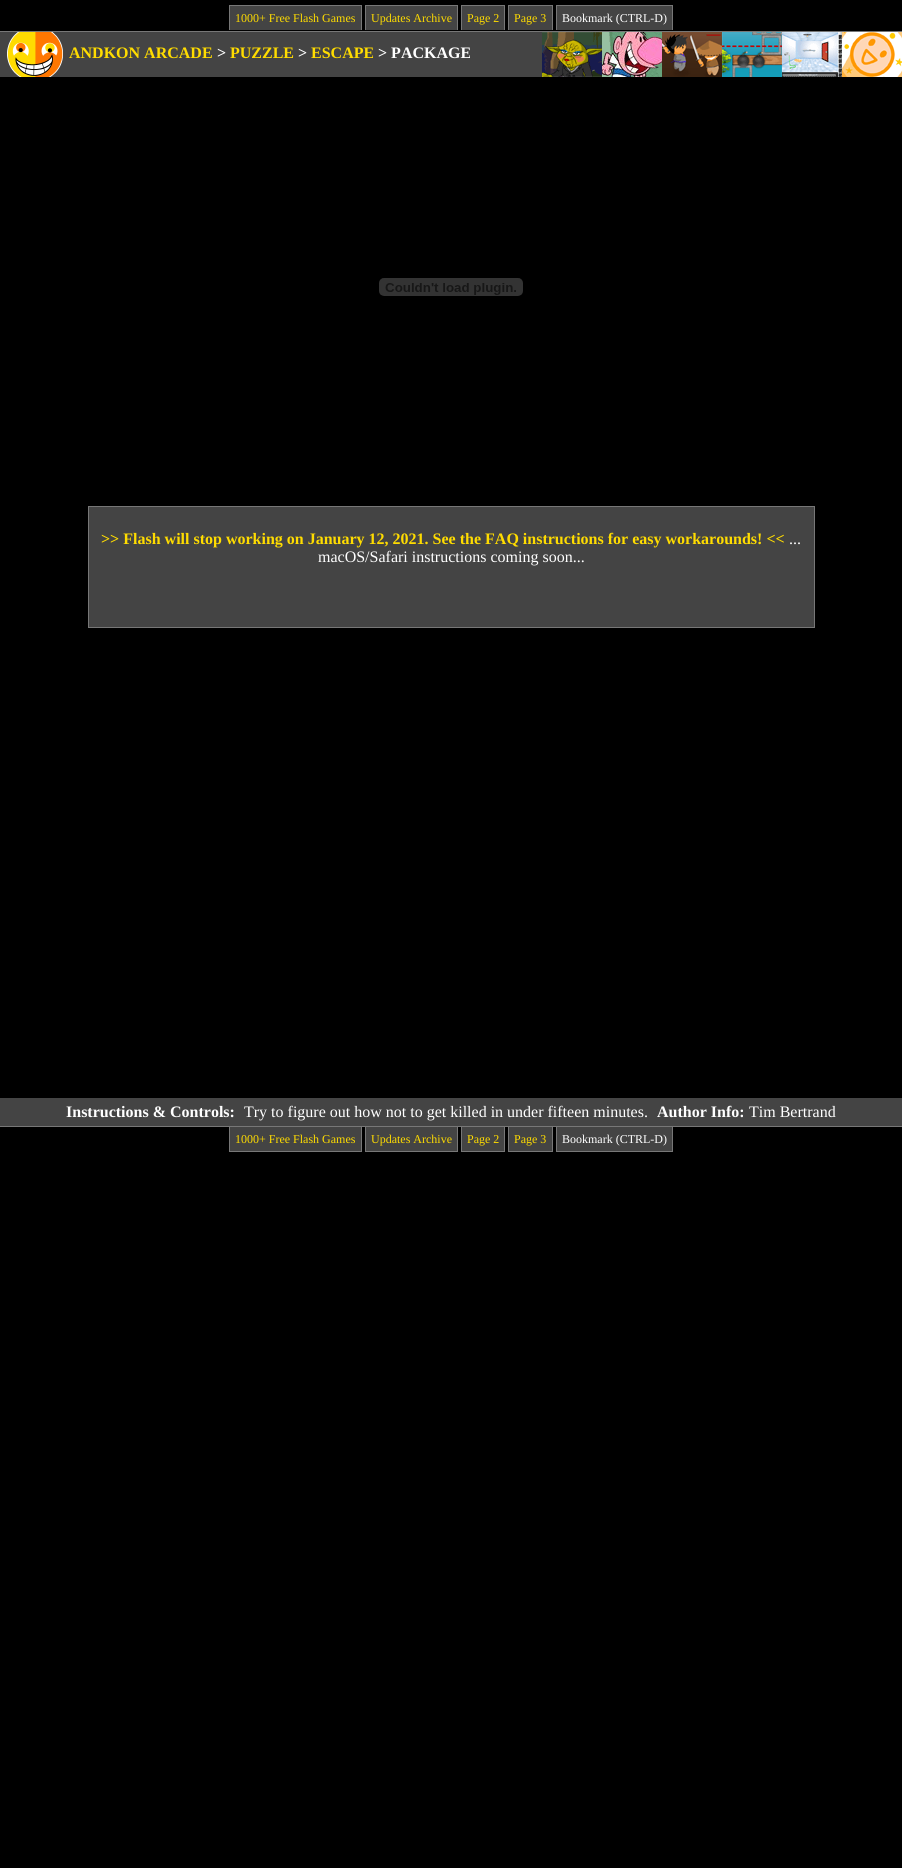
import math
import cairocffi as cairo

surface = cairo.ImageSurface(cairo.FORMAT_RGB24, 902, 1868)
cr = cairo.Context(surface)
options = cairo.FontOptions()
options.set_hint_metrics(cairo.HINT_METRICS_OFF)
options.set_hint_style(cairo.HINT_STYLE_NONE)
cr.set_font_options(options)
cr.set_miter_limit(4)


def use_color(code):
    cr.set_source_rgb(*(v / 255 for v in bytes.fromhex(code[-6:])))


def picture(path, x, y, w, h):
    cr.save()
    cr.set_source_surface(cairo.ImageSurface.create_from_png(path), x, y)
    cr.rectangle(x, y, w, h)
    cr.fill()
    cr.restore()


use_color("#000000")
cr.paint()
use_color("#444444")
cr.rectangle(230, 6, 131, 24)
cr.fill()
cr.select_font_face("Liberation Serif")
cr.set_font_size(12)
use_color("#ffdc00")
cr.move_to(235, 22)
cr.show_text("1000+ Free Flash Games")
use_color("#777777")
cr.rectangle(229, 5, 133, 1)
cr.fill()
cr.rectangle(361, 5, 1, 25)
cr.fill()
cr.rectangle(229, 5, 1, 25)
cr.fill()
use_color("#444444")
cr.rectangle(366, 6, 91, 24)
cr.fill()
use_color("#ffdc00")
cr.move_to(371, 22)
cr.show_text("Updates Archive")
use_color("#777777")
cr.rectangle(365, 5, 93, 1)
cr.fill()
cr.rectangle(457, 5, 1, 25)
cr.fill()
cr.rectangle(365, 5, 1, 25)
cr.fill()
use_color("#444444")
cr.rectangle(462, 6, 42, 24)
cr.fill()
use_color("#ffdc00")
cr.move_to(467, 22)
cr.show_text("Page 2")
use_color("#777777")
cr.rectangle(461, 5, 44, 1)
cr.fill()
cr.rectangle(504, 5, 1, 25)
cr.fill()
cr.rectangle(461, 5, 1, 25)
cr.fill()
use_color("#444444")
cr.rectangle(509, 6, 43, 24)
cr.fill()
use_color("#ffdc00")
cr.move_to(514, 22)
cr.show_text("Page 3")
use_color("#777777")
cr.rectangle(508, 5, 45, 1)
cr.fill()
cr.rectangle(552, 5, 1, 25)
cr.fill()
cr.rectangle(508, 5, 1, 25)
cr.fill()
use_color("#444444")
cr.rectangle(557, 6, 115, 24)
cr.fill()
use_color("#ffffff")
cr.move_to(562, 22)
cr.show_text("Bookmark (CTRL-D)")
use_color("#777777")
cr.rectangle(556, 5, 117, 1)
cr.fill()
cr.rectangle(672, 5, 1, 25)
cr.fill()
cr.rectangle(556, 5, 1, 25)
cr.fill()
use_color("#444444")
cr.rectangle(0, 32, 542, 45)
cr.fill()
use_color("#777777")
cr.rectangle(0, 31, 902, 1)
cr.fill()
picture("img1.png", 7, 32, 56, 45)
cr.select_font_face("Liberation Serif", cairo.FONT_SLANT_NORMAL, cairo.FONT_WEIGHT_BOLD)
cr.set_font_size(16)
use_color("#ffdc00")
cr.move_to(69, 58)
cr.show_text("ANDKON ARCADE")
use_color("#ffffff")
cr.move_to(217, 58)
cr.show_text(">")
use_color("#ffdc00")
cr.move_to(230, 58)
cr.show_text("PUZZLE")
use_color("#ffffff")
cr.move_to(298, 58)
cr.show_text(">")
use_color("#ffdc00")
cr.move_to(311, 58)
cr.show_text("ESCAPE")
use_color("#ffffff")
cr.move_to(378, 58)
cr.show_text("> PACKAGE")
picture("img2.png", 542, 32, 60, 45)
picture("img3.png", 602, 32, 60, 45)
picture("img4.png", 662, 32, 60, 45)
picture("img5.png", 722, 32, 60, 45)
picture("img6.png", 782, 32, 60, 45)
picture("img7.png", 842, 32, 60, 45)
picture("img8.png", 379, 278, 144, 18)
use_color("#444444")
cr.rectangle(88.5, 506.5, 726, 121)
cr.fill_preserve()
use_color("#777777")
cr.set_line_width(1)
cr.stroke()
use_color("#ffdc00")
cr.move_to(101, 544)
cr.show_text(">> Flash will stop working on January 12, 2021. See the FAQ instructions for easy workarounds! <<")
cr.select_font_face("Liberation Serif")
use_color("#ffffff")
cr.move_to(789, 544)
cr.show_text("...")
cr.move_to(318, 562)
cr.show_text("macOS/Safari instructions coming soon...")
use_color("#444444")
cr.rectangle(0, 1098, 902, 28)
cr.fill()
use_color("#777777")
cr.rectangle(0, 1126, 902, 1)
cr.fill()
cr.select_font_face("Liberation Serif", cairo.FONT_SLANT_NORMAL, cairo.FONT_WEIGHT_BOLD)
use_color("#ffffff")
cr.move_to(66, 1117)
cr.show_text("Instructions & Controls:")
cr.select_font_face("Liberation Serif")
cr.move_to(244, 1117)
cr.show_text("Try to figure out how not to get killed in under fifteen minutes.")
cr.select_font_face("Liberation Serif", cairo.FONT_SLANT_NORMAL, cairo.FONT_WEIGHT_BOLD)
cr.move_to(657, 1117)
cr.show_text("Author Info:")
cr.select_font_face("Liberation Serif")
cr.move_to(749, 1117)
cr.show_text("Tim Bertrand")
use_color("#444444")
cr.rectangle(230, 1127, 131, 24)
cr.fill()
cr.set_font_size(12)
use_color("#ffdc00")
cr.move_to(235, 1143)
cr.show_text("1000+ Free Flash Games")
use_color("#777777")
cr.rectangle(361, 1127, 1, 25)
cr.fill()
cr.rectangle(229, 1151, 133, 1)
cr.fill()
cr.rectangle(229, 1127, 1, 25)
cr.fill()
use_color("#444444")
cr.rectangle(366, 1127, 91, 24)
cr.fill()
use_color("#ffdc00")
cr.move_to(371, 1143)
cr.show_text("Updates Archive")
use_color("#777777")
cr.rectangle(457, 1127, 1, 25)
cr.fill()
cr.rectangle(365, 1151, 93, 1)
cr.fill()
cr.rectangle(365, 1127, 1, 25)
cr.fill()
use_color("#444444")
cr.rectangle(462, 1127, 42, 24)
cr.fill()
use_color("#ffdc00")
cr.move_to(467, 1143)
cr.show_text("Page 2")
use_color("#777777")
cr.rectangle(504, 1127, 1, 25)
cr.fill()
cr.rectangle(461, 1151, 44, 1)
cr.fill()
cr.rectangle(461, 1127, 1, 25)
cr.fill()
use_color("#444444")
cr.rectangle(509, 1127, 43, 24)
cr.fill()
use_color("#ffdc00")
cr.move_to(514, 1143)
cr.show_text("Page 3")
use_color("#777777")
cr.rectangle(552, 1127, 1, 25)
cr.fill()
cr.rectangle(508, 1151, 45, 1)
cr.fill()
cr.rectangle(508, 1127, 1, 25)
cr.fill()
use_color("#444444")
cr.rectangle(557, 1127, 115, 24)
cr.fill()
use_color("#ffffff")
cr.move_to(562, 1143)
cr.show_text("Bookmark (CTRL-D)")
use_color("#777777")
cr.rectangle(672, 1127, 1, 25)
cr.fill()
cr.rectangle(556, 1151, 117, 1)
cr.fill()
cr.rectangle(556, 1127, 1, 25)
cr.fill()
surface.write_to_png("result.png")
